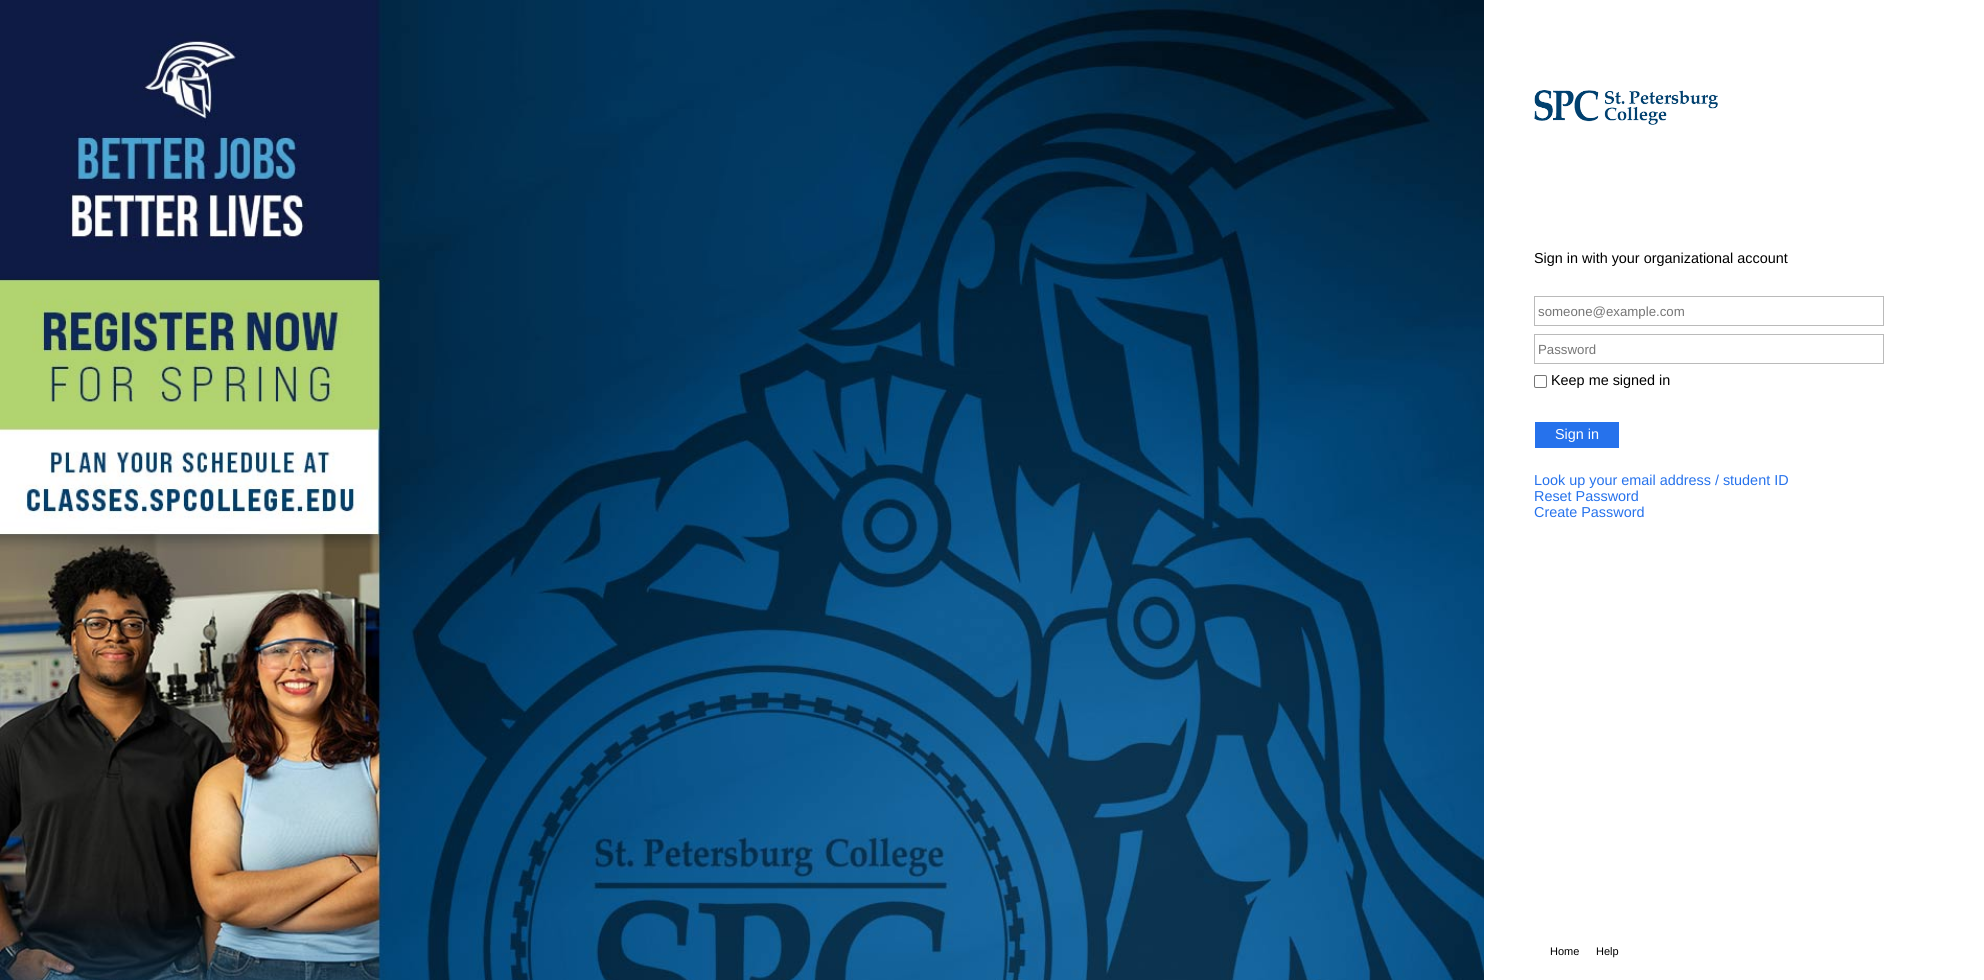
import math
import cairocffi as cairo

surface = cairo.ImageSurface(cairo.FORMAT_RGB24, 1984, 980)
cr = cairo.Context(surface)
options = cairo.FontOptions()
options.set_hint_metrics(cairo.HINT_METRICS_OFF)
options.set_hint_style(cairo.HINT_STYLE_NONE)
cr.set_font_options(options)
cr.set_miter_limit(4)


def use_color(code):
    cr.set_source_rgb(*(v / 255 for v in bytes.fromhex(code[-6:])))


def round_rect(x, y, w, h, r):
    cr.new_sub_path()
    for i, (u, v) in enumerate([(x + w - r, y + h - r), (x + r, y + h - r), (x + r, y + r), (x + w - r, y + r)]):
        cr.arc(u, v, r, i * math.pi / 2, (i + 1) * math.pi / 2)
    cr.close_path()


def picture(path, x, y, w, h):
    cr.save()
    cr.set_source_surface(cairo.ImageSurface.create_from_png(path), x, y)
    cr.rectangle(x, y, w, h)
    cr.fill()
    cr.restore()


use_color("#ffffff")
cr.paint()
picture("img1.png", 0, 0, 1484, 980)
picture("img2.png", 1534, 90, 184, 35)
cr.select_font_face("Liberation Sans")
cr.set_font_size(14.4)
use_color("#000000")
cr.move_to(1534, 263)
cr.show_text("Sign in with your organizational account")
cr.rectangle(1534.5, 296.5, 349, 29)
use_color("#bababa")
cr.set_line_width(1)
cr.stroke()
cr.set_font_size(13.25)
use_color("#757575")
cr.move_to(1538, 316)
cr.show_text("someone@example.com")
cr.rectangle(1534.5, 334.5, 349, 29)
use_color("#bababa")
cr.stroke()
use_color("#757575")
cr.move_to(1538, 354)
cr.show_text("Password")
round_rect(1534.5, 375.5, 12, 12, 1.5)
use_color("#767676")
cr.stroke()
cr.set_font_size(14.4)
use_color("#000000")
cr.move_to(1551, 385)
cr.show_text("Keep me signed in")
use_color("#2672ec")
cr.rectangle(1535, 422, 84, 26)
cr.fill()
use_color("#ffffff")
cr.move_to(1555, 439)
cr.show_text("Sign in")
use_color("#2672ec")
cr.move_to(1534, 485)
cr.show_text("Look up your email address / student ID")
cr.move_to(1534, 501)
cr.show_text("Reset Password")
cr.move_to(1534, 517)
cr.show_text("Create Password")
cr.set_font_size(11)
use_color("#000000")
cr.move_to(1550, 955)
cr.show_text("Home")
cr.move_to(1596, 955)
cr.show_text("Help")
surface.write_to_png("result.png")
